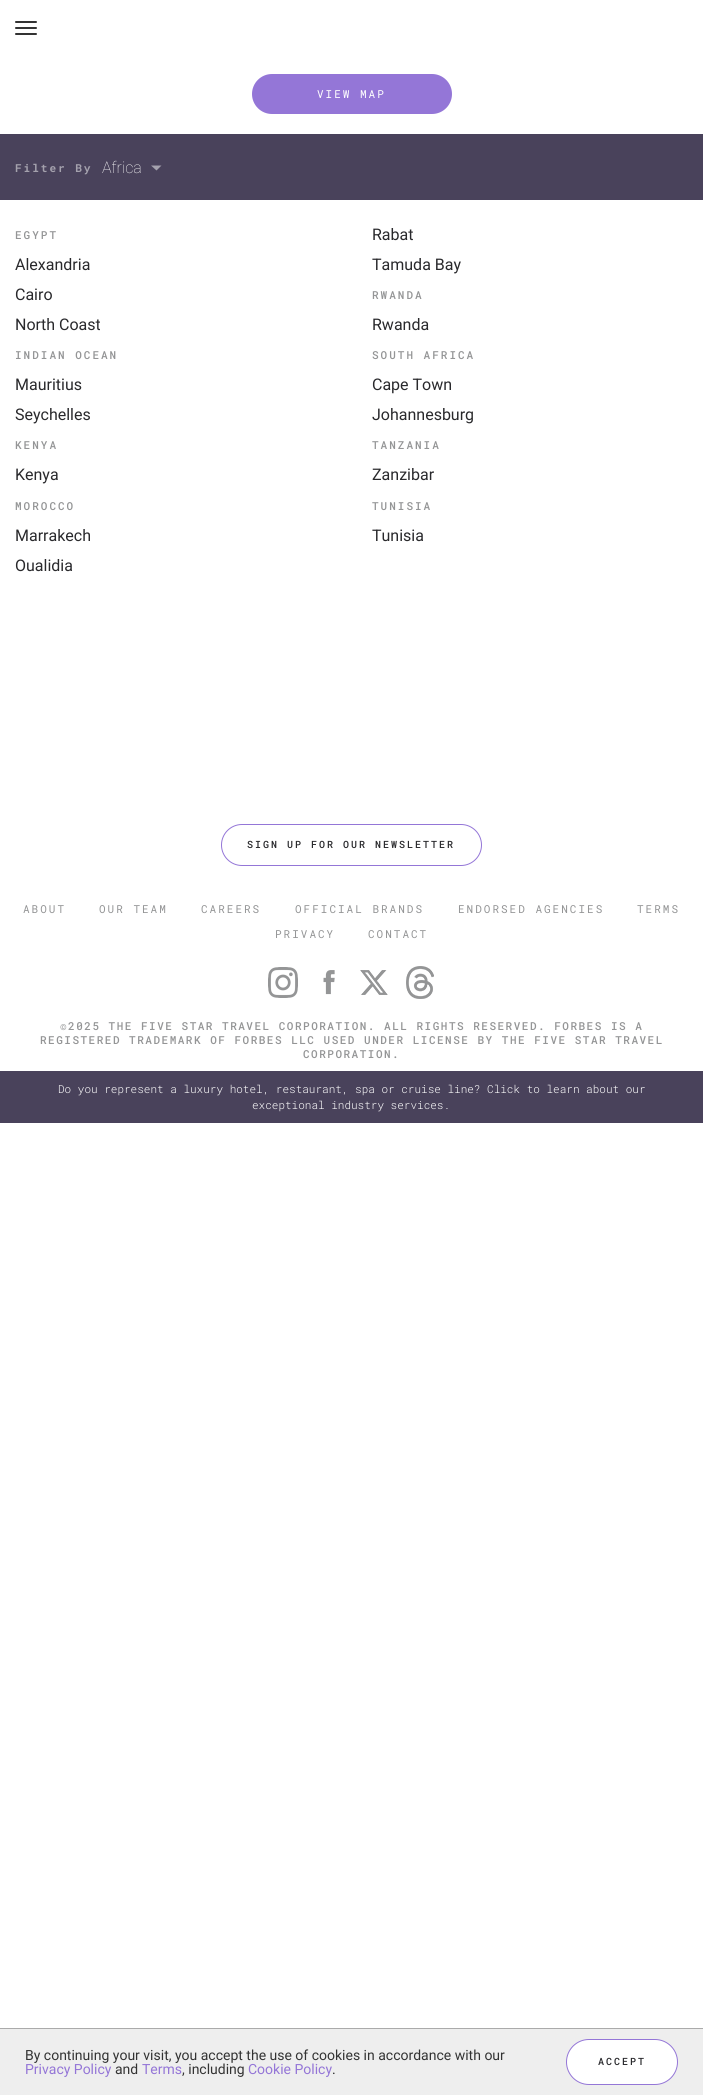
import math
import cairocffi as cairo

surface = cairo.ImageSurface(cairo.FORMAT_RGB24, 703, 2095)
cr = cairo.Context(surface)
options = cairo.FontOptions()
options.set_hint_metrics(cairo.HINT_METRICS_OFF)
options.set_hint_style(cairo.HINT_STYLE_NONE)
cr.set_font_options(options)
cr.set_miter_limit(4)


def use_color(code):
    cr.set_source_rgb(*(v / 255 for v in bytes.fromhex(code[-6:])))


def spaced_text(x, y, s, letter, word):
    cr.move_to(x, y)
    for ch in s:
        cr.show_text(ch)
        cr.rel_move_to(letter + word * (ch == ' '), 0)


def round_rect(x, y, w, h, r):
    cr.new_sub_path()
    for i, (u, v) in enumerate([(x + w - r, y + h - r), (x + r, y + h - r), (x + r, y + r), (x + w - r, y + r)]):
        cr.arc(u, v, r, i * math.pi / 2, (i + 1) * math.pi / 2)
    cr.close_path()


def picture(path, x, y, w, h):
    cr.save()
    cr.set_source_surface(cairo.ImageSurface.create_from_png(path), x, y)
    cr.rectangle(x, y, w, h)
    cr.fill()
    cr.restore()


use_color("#ffffff")
cr.paint()
use_color("#333333")
round_rect(15, 21, 22, 2, 1)
cr.fill()
round_rect(15, 27, 22, 2, 1)
cr.fill()
round_rect(15, 33, 22, 2, 1)
cr.fill()
use_color("#9476d7")
round_rect(252, 74, 200, 40, 20)
cr.fill()
cr.select_font_face("Roboto Mono")
cr.set_font_size(11)
use_color("#ffffff")
spaced_text(317, 98, "VIEW MAP", 2, 0)
use_color("#49425b")
cr.rectangle(0, 134, 703, 66)
cr.fill()
cr.select_font_face("Roboto Mono", cairo.FONT_SLANT_NORMAL, cairo.FONT_WEIGHT_BOLD)
use_color("#a4a1ad")
spaced_text(15, 172, "Filter By", 2, 0)
cr.select_font_face("Roboto Thin")
cr.set_font_size(16)
use_color("#ffffff")
cr.move_to(102, 173)
cr.show_text("Africa")
use_color("#a4a1ad")
cr.set_fill_rule(cairo.FILL_RULE_EVEN_ODD)
cr.new_path()
cr.move_to(161.5, 165.5)
cr.line_to(156.5, 170.5)
cr.line_to(151, 165.5)
cr.close_path()
cr.fill()
cr.select_font_face("Roboto")
use_color("#29292c")
cr.move_to(372, 240)
cr.show_text("Rabat")
cr.move_to(372, 270)
cr.show_text("Tamuda Bay")
cr.select_font_face("Roboto Mono Medium")
cr.set_font_size(11)
use_color("#949596")
spaced_text(15, 510, "MOROCCO", 2, 0)
cr.select_font_face("Roboto")
cr.set_font_size(16)
use_color("#29292c")
cr.move_to(15, 541)
cr.show_text("Marrakech")
cr.move_to(15, 571)
cr.show_text("Oualidia")
cr.select_font_face("Roboto Mono Medium")
cr.set_font_size(11)
use_color("#949596")
spaced_text(15, 239, "EGYPT", 2, 0)
cr.select_font_face("Roboto")
cr.set_font_size(16)
use_color("#29292c")
cr.move_to(15, 270)
cr.show_text("Alexandria")
cr.move_to(15, 300)
cr.show_text("Cairo")
cr.move_to(15, 330)
cr.show_text("North Coast")
cr.select_font_face("Roboto Mono Medium")
cr.set_font_size(11)
use_color("#949596")
spaced_text(372, 299, "RWANDA", 2, 0)
cr.select_font_face("Roboto")
cr.set_font_size(16)
use_color("#29292c")
cr.move_to(372, 330)
cr.show_text("Rwanda")
cr.select_font_face("Roboto Mono Medium")
cr.set_font_size(11)
use_color("#949596")
spaced_text(15, 359, "INDIAN OCEAN", 2, 0)
cr.select_font_face("Roboto")
cr.set_font_size(16)
use_color("#29292c")
cr.move_to(15, 390)
cr.show_text("Mauritius")
cr.move_to(15, 420)
cr.show_text("Seychelles")
cr.select_font_face("Roboto Mono Medium")
cr.set_font_size(11)
use_color("#949596")
spaced_text(372, 359, "SOUTH AFRICA", 2, 0)
cr.select_font_face("Roboto")
cr.set_font_size(16)
use_color("#29292c")
cr.move_to(372, 390)
cr.show_text("Cape Town")
cr.move_to(372, 420)
cr.show_text("Johannesburg")
cr.select_font_face("Roboto Mono Medium")
cr.set_font_size(11)
use_color("#949596")
spaced_text(15, 449, "KENYA", 2, 0)
cr.select_font_face("Roboto")
cr.set_font_size(16)
use_color("#29292c")
cr.move_to(15, 480)
cr.show_text("Kenya")
cr.select_font_face("Roboto Mono Medium")
cr.set_font_size(11)
use_color("#949596")
spaced_text(372, 449, "TANZANIA", 2, 0)
cr.select_font_face("Roboto")
cr.set_font_size(16)
use_color("#29292c")
cr.move_to(372, 480)
cr.show_text("Zanzibar")
cr.select_font_face("Roboto Mono Medium")
cr.set_font_size(11)
use_color("#949596")
spaced_text(372, 510, "TUNISIA", 2, 0)
cr.select_font_face("Roboto")
cr.set_font_size(16)
use_color("#29292c")
cr.move_to(372, 541)
cr.show_text("Tunisia")
round_rect(221.5, 824.5, 260, 41, 20.5)
use_color("#9476d7")
cr.set_line_width(1)
cr.stroke()
cr.select_font_face("Roboto Mono Medium")
cr.set_font_size(10)
use_color("#29292c")
spaced_text(247, 848, "SIGN UP FOR OUR NEWSLETTER", 2, 0)
cr.select_font_face("Roboto Mono")
cr.set_font_size(11)
use_color("#949596")
spaced_text(23, 913, "ABOUT", 2, 0)
spaced_text(99, 913, "OUR TEAM", 2, 0)
spaced_text(201, 913, "CAREERS", 2, 0)
spaced_text(295, 913, "OFFICIAL BRANDS", 2, 0)
spaced_text(458, 913, "ENDORSED AGENCIES", 2, 0)
spaced_text(637, 913, "TERMS", 2, 0)
spaced_text(275, 938, "PRIVACY", 2, 0)
spaced_text(368, 938, "CONTACT", 2, 0)
picture("img1.png", 268, 967, 30, 31)
picture("img2.png", 323, 970, 12, 25)
picture("img3.png", 360, 970, 28, 25)
picture("img4.png", 406, 966, 28, 33)
cr.select_font_face("Roboto Mono Medium")
spaced_text(60, 1030, "©2025 THE FIVE STAR TRAVEL CORPORATION. ALL RIGHTS RESERVED. FORBES IS A", 1.5, 0)
spaced_text(40, 1044, "REGISTERED TRADEMARK OF FORBES LLC USED UNDER LICENSE BY THE FIVE STAR TRAVEL", 1.5, 0)
spaced_text(303, 1058, "CORPORATION.", 1.5, 0)
use_color("#49425b")
cr.rectangle(0, 1071, 703, 52)
cr.fill()
cr.select_font_face("Roboto Mono Light")
use_color("#ffffff")
cr.move_to(58, 1093)
cr.show_text("Do you represent a luxury hotel, restaurant, spa or cruise line? Click to learn about our")
cr.move_to(252, 1109)
cr.show_text("exceptional industry services.")
use_color("#eeeeee")
cr.rectangle(0, 2029, 703, 66)
cr.fill()
use_color("#aaaaaa")
cr.rectangle(0, 2028, 703, 1)
cr.fill()
cr.select_font_face("Roboto")
cr.set_font_size(14)
use_color("#333333")
cr.move_to(25, 2060)
cr.show_text("By continuing your visit, you accept the use of cookies in accordance with our")
use_color("#9476d7")
cr.move_to(25, 2074)
cr.show_text("Privacy Policy")
use_color("#333333")
cr.move_to(115, 2074)
cr.show_text("and")
use_color("#9476d7")
cr.move_to(142, 2074)
cr.show_text("Terms")
use_color("#333333")
cr.move_to(182, 2074)
cr.show_text(", including")
use_color("#9476d7")
cr.move_to(248, 2074)
cr.show_text("Cookie Policy")
use_color("#333333")
cr.move_to(332, 2074)
cr.show_text(".")
use_color("#ffffff")
round_rect(566.5, 2039.5, 111, 45, 22.5)
cr.fill_preserve()
use_color("#9476d7")
cr.stroke()
cr.select_font_face("Roboto Mono Medium")
cr.set_font_size(10)
use_color("#29292c")
spaced_text(598, 2065, "ACCEPT", 2, 0)
surface.write_to_png("result.png")
